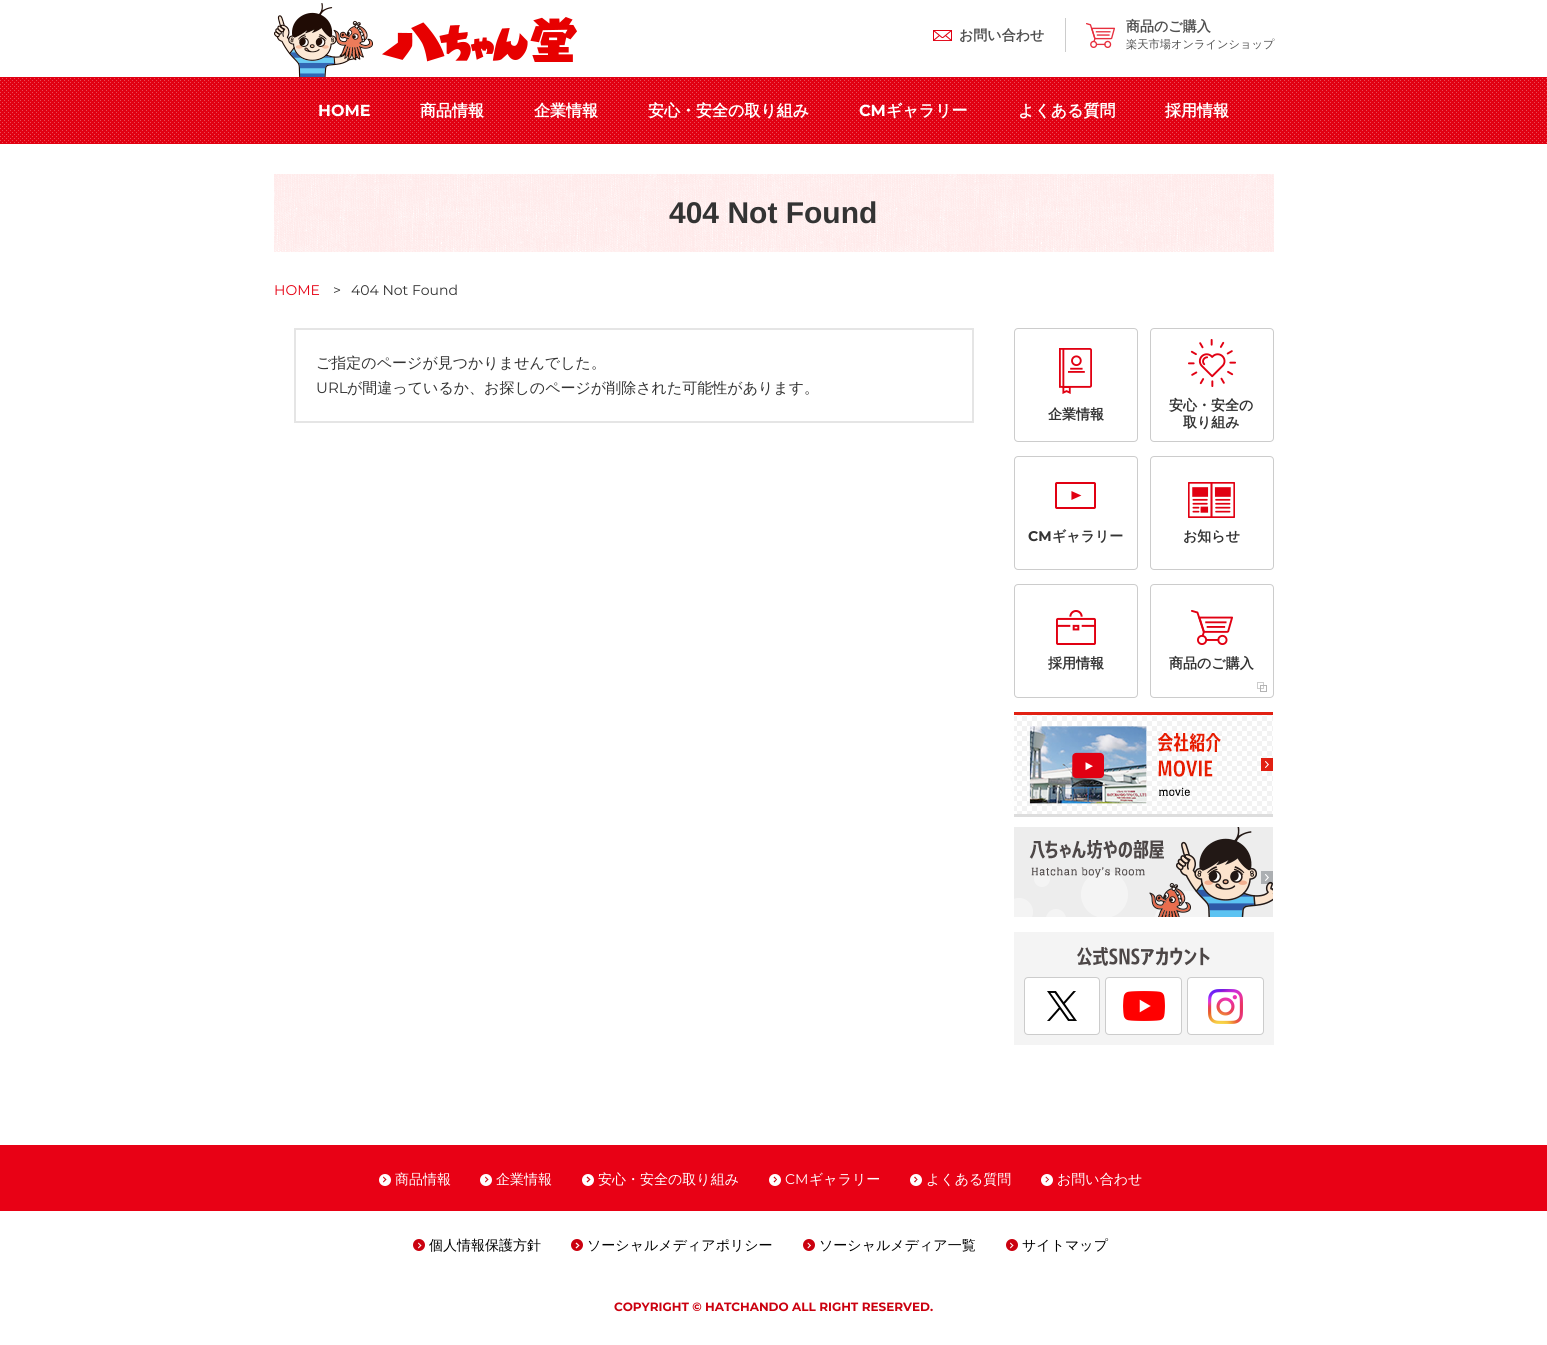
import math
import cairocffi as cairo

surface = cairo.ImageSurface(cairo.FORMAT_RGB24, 1547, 1345)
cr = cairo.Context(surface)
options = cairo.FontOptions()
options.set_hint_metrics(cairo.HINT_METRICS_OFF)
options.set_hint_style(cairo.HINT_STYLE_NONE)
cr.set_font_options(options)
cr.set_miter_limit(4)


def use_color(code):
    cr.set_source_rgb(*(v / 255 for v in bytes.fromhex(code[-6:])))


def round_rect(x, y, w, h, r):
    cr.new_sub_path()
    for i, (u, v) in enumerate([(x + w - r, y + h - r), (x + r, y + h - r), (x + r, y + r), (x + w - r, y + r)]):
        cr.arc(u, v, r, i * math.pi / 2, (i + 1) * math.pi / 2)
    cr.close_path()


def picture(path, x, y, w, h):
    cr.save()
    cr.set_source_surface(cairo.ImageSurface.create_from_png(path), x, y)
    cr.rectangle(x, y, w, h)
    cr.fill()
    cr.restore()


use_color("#ffffff")
cr.paint()
picture("img1.png", 274, 3, 303, 74)
picture("img2.png", 933, 30, 19, 11)
use_color("#cccccc")
cr.rectangle(1065, 18, 1, 34)
cr.fill()
cr.select_font_face("WenQuanYi Zen Hei", cairo.FONT_SLANT_NORMAL, cairo.FONT_WEIGHT_BOLD)
cr.set_font_size(14)
use_color("#505050")
cr.move_to(959, 40)
cr.show_text("お問い合わせ")
picture("img3.png", 1086, 23, 29, 25)
cr.move_to(1126, 31)
cr.show_text("商品のご購入")
cr.select_font_face("WenQuanYi Zen Hei Medium")
cr.set_font_size(11.25)
cr.move_to(1126, 48)
cr.show_text("楽天市場オンラインショップ")
picture("img4.png", 0, 77, 1547, 67)
cr.select_font_face("Montserrat", cairo.FONT_SLANT_NORMAL, cairo.FONT_WEIGHT_BOLD)
cr.set_font_size(16)
use_color("#ffffff")
cr.move_to(318, 116)
cr.show_text("HOME")
cr.select_font_face("WenQuanYi Zen Hei", cairo.FONT_SLANT_NORMAL, cairo.FONT_WEIGHT_BOLD)
cr.move_to(420, 116)
cr.show_text("商品情報")
cr.move_to(534, 116)
cr.show_text("企業情報")
cr.move_to(648, 116)
cr.show_text("安心・安全の取り組み")
cr.select_font_face("Montserrat", cairo.FONT_SLANT_NORMAL, cairo.FONT_WEIGHT_BOLD)
cr.move_to(859, 116)
cr.show_text("CM")
cr.select_font_face("WenQuanYi Zen Hei", cairo.FONT_SLANT_NORMAL, cairo.FONT_WEIGHT_BOLD)
cr.move_to(886, 116)
cr.show_text("ギャラリー")
cr.move_to(1018, 116)
cr.show_text("よくある質問")
cr.move_to(1165, 116)
cr.show_text("採用情報")
picture("img5.png", 274, 174, 1000, 78)
cr.select_font_face("Liberation Sans", cairo.FONT_SLANT_NORMAL, cairo.FONT_WEIGHT_BOLD)
cr.set_font_size(30)
use_color("#333333")
cr.move_to(669, 223)
cr.show_text("404 Not Found")
cr.select_font_face("Montserrat")
cr.set_font_size(14)
use_color("#e60012")
cr.move_to(274, 295)
cr.show_text("HOME")
use_color("#333333")
cr.move_to(333, 295)
cr.show_text(">")
cr.move_to(351, 295)
cr.show_text("404 Not Found")
cr.rectangle(295, 329, 678, 93)
use_color("#e5e5e5")
cr.stroke()
cr.select_font_face("WenQuanYi Zen Hei Medium")
cr.set_font_size(15)
use_color("#333333")
cr.move_to(316, 368)
cr.show_text("ご指定のページが見つかりませんでした。")
cr.select_font_face("Montserrat")
cr.move_to(316, 393)
cr.show_text("URL")
cr.select_font_face("WenQuanYi Zen Hei Medium")
cr.move_to(347, 393)
cr.show_text("が間違っているか、お探しのページが削除された可能性があります。")
round_rect(1014.5, 328.5, 123, 113, 3.5)
use_color("#cccccc")
cr.set_line_width(1)
cr.stroke()
picture("img6.png", 1059, 348, 33, 46)
cr.select_font_face("WenQuanYi Zen Hei", cairo.FONT_SLANT_NORMAL, cairo.FONT_WEIGHT_BOLD)
cr.set_font_size(14)
use_color("#333333")
cr.move_to(1048, 419)
cr.show_text("企業情報")
round_rect(1150.5, 328.5, 123, 113, 3.5)
use_color("#cccccc")
cr.stroke()
picture("img7.png", 1188, 339, 48, 48)
use_color("#333333")
cr.move_to(1169, 410)
cr.show_text("安心・安全の")
cr.move_to(1183, 427)
cr.show_text("取り組み")
round_rect(1014.5, 456.5, 123, 113, 3.5)
use_color("#cccccc")
cr.stroke()
picture("img8.png", 1055, 482, 41, 27)
cr.select_font_face("Montserrat", cairo.FONT_SLANT_NORMAL, cairo.FONT_WEIGHT_BOLD)
use_color("#333333")
cr.move_to(1028, 541)
cr.show_text("CM")
cr.select_font_face("WenQuanYi Zen Hei", cairo.FONT_SLANT_NORMAL, cairo.FONT_WEIGHT_BOLD)
cr.move_to(1052, 541)
cr.show_text("ギャラリー")
round_rect(1150.5, 456.5, 123, 113, 3.5)
use_color("#cccccc")
cr.stroke()
picture("img9.png", 1188, 482, 47, 36)
use_color("#333333")
cr.move_to(1183, 541)
cr.show_text("お知らせ")
round_rect(1014.5, 584.5, 123, 113, 3.5)
use_color("#cccccc")
cr.stroke()
picture("img10.png", 1056, 610, 40, 35)
use_color("#333333")
cr.move_to(1048, 668)
cr.show_text("採用情報")
picture("img11.png", 1257, 682, 10, 10)
round_rect(1150.5, 584.5, 123, 113, 3.5)
use_color("#cccccc")
cr.stroke()
picture("img12.png", 1191, 610, 42, 35)
use_color("#333333")
cr.move_to(1169, 668)
cr.show_text("商品のご購入")
picture("img13.png", 1014, 712, 259, 105)
picture("img14.png", 1014, 827, 259, 90)
use_color("#f4f4f4")
cr.rectangle(1014, 932, 260, 113)
cr.fill()
picture("img15.png", 1077, 947, 133, 19)
use_color("#ffffff")
round_rect(1024.5, 977.5, 75, 57, 3.5)
cr.fill_preserve()
use_color("#cccccc")
cr.stroke()
picture("img16.png", 1047, 991, 30, 30)
use_color("#ffffff")
round_rect(1105.5, 977.5, 76, 57, 3.5)
cr.fill_preserve()
use_color("#cccccc")
cr.stroke()
picture("img17.png", 1123, 991, 42, 30)
use_color("#ffffff")
round_rect(1187.5, 977.5, 76, 57, 3.5)
cr.fill_preserve()
use_color("#cccccc")
cr.stroke()
picture("img18.png", 1208, 989, 35, 35)
use_color("#e80115")
cr.rectangle(0, 1145, 1547, 66)
cr.fill()
use_color("#ffffff")
cr.arc(385, 1180, 6, 0, 2 * math.pi)
cr.fill()
cr.select_font_face("WenQuanYi Zen Hei Medium")
cr.move_to(395, 1184)
cr.show_text("商品情報")
use_color("#cb010f")
cr.new_path()
cr.move_to(383.5, 1176.5)
cr.line_to(386.5, 1179.5)
cr.line_to(385.5, 1180)
cr.line_to(383, 1177.5)
cr.close_path()
cr.fill()
cr.new_path()
cr.move_to(385.5, 1179)
cr.line_to(386.5, 1179.5)
cr.line_to(383.5, 1182.5)
cr.line_to(383, 1181.5)
cr.close_path()
cr.fill()
use_color("#ffffff")
cr.arc(486, 1180, 6, 0, 2 * math.pi)
cr.fill()
cr.move_to(496, 1184)
cr.show_text("企業情報")
use_color("#cb010f")
cr.new_path()
cr.move_to(485.5, 1176.5)
cr.line_to(488.5, 1179.5)
cr.line_to(487.5, 1180)
cr.line_to(485, 1177.5)
cr.close_path()
cr.fill()
cr.new_path()
cr.move_to(487.5, 1179)
cr.line_to(488.5, 1179.5)
cr.line_to(485.5, 1182.5)
cr.line_to(485, 1181.5)
cr.close_path()
cr.fill()
use_color("#ffffff")
cr.arc(588, 1180, 6, 0, 2 * math.pi)
cr.fill()
cr.move_to(598, 1184)
cr.show_text("安心・安全の取り組み")
use_color("#cb010f")
cr.new_path()
cr.move_to(587.5, 1176.5)
cr.line_to(590.5, 1179.5)
cr.line_to(589.5, 1180)
cr.line_to(586.5, 1177.5)
cr.close_path()
cr.fill()
cr.new_path()
cr.move_to(589.5, 1179)
cr.line_to(590.5, 1179.5)
cr.line_to(587.5, 1182.5)
cr.line_to(586.5, 1181.5)
cr.close_path()
cr.fill()
use_color("#ffffff")
cr.arc(775, 1180, 6, 0, 2 * math.pi)
cr.fill()
cr.select_font_face("Montserrat")
cr.move_to(785, 1184)
cr.show_text("CM")
cr.select_font_face("WenQuanYi Zen Hei Medium")
cr.move_to(809, 1184)
cr.show_text("ギャラリー")
use_color("#cb010f")
cr.new_path()
cr.move_to(774.5, 1176.5)
cr.line_to(777, 1179.5)
cr.line_to(776.5, 1180)
cr.line_to(773.5, 1177.5)
cr.close_path()
cr.fill()
cr.new_path()
cr.move_to(776.5, 1179)
cr.line_to(777, 1179.5)
cr.line_to(774.5, 1182.5)
cr.line_to(773.5, 1181.5)
cr.close_path()
cr.fill()
use_color("#ffffff")
cr.arc(916, 1180, 6, 0, 2 * math.pi)
cr.fill()
cr.move_to(926, 1184)
cr.show_text("よくある質問")
use_color("#cb010f")
cr.new_path()
cr.move_to(915, 1176.5)
cr.line_to(917.5, 1179.5)
cr.line_to(917, 1180)
cr.line_to(914, 1177.5)
cr.close_path()
cr.fill()
cr.new_path()
cr.move_to(917, 1179)
cr.line_to(917.5, 1179.5)
cr.line_to(915, 1182.5)
cr.line_to(914, 1181.5)
cr.close_path()
cr.fill()
use_color("#ffffff")
cr.arc(1047, 1180, 6, 0, 2 * math.pi)
cr.fill()
cr.move_to(1057, 1184)
cr.show_text("お問い合わせ")
use_color("#cb010f")
cr.new_path()
cr.move_to(1046, 1176.5)
cr.line_to(1049, 1179.5)
cr.line_to(1048.5, 1180)
cr.line_to(1045.5, 1177.5)
cr.close_path()
cr.fill()
cr.new_path()
cr.move_to(1048.5, 1179)
cr.line_to(1049, 1179.5)
cr.line_to(1046, 1182.5)
cr.line_to(1045.5, 1181.5)
cr.close_path()
cr.fill()
cr.arc(419, 1245, 6, 0, 2 * math.pi)
cr.fill()
use_color("#000000")
cr.move_to(429, 1250)
cr.show_text("個人情報保護方針")
use_color("#ffffff")
cr.new_path()
cr.move_to(418.5, 1242.5)
cr.line_to(421.5, 1245.5)
cr.line_to(420.5, 1246)
cr.line_to(418, 1243.5)
cr.close_path()
cr.fill()
cr.new_path()
cr.move_to(420.5, 1245)
cr.line_to(421.5, 1245.5)
cr.line_to(418.5, 1248.5)
cr.line_to(418, 1247.5)
cr.close_path()
cr.fill()
use_color("#cb010f")
cr.arc(577, 1245, 6, 0, 2 * math.pi)
cr.fill()
use_color("#000000")
cr.move_to(587, 1250)
cr.show_text("ソーシャルメディアポリシー")
use_color("#ffffff")
cr.new_path()
cr.move_to(576.5, 1242.5)
cr.line_to(579.5, 1245.5)
cr.line_to(578.5, 1246)
cr.line_to(575.5, 1243.5)
cr.close_path()
cr.fill()
cr.new_path()
cr.move_to(578.5, 1245)
cr.line_to(579.5, 1245.5)
cr.line_to(576.5, 1248.5)
cr.line_to(575.5, 1247.5)
cr.close_path()
cr.fill()
use_color("#cb010f")
cr.arc(809, 1245, 6, 0, 2 * math.pi)
cr.fill()
use_color("#000000")
cr.move_to(819, 1250)
cr.show_text("ソーシャルメディア一覧")
use_color("#ffffff")
cr.new_path()
cr.move_to(808, 1242.5)
cr.line_to(811, 1245.5)
cr.line_to(810, 1246)
cr.line_to(807.5, 1243.5)
cr.close_path()
cr.fill()
cr.new_path()
cr.move_to(810, 1245)
cr.line_to(811, 1245.5)
cr.line_to(808, 1248.5)
cr.line_to(807.5, 1247.5)
cr.close_path()
cr.fill()
use_color("#cb010f")
cr.arc(1012, 1245, 6, 0, 2 * math.pi)
cr.fill()
use_color("#000000")
cr.move_to(1022, 1250)
cr.show_text("サイトマップ")
use_color("#ffffff")
cr.new_path()
cr.move_to(1010.5, 1242.5)
cr.line_to(1013.5, 1245.5)
cr.line_to(1012.5, 1246)
cr.line_to(1010, 1243.5)
cr.close_path()
cr.fill()
cr.new_path()
cr.move_to(1012.5, 1245)
cr.line_to(1013.5, 1245.5)
cr.line_to(1010.5, 1248.5)
cr.line_to(1010, 1247.5)
cr.close_path()
cr.fill()
cr.select_font_face("Montserrat", cairo.FONT_SLANT_NORMAL, cairo.FONT_WEIGHT_BOLD)
cr.set_font_size(12)
use_color("#cb010f")
cr.move_to(614, 1311)
cr.show_text("COPYRIGHT © HATCHANDO ALL RIGHT RESERVED.")
surface.write_to_png("result.png")
